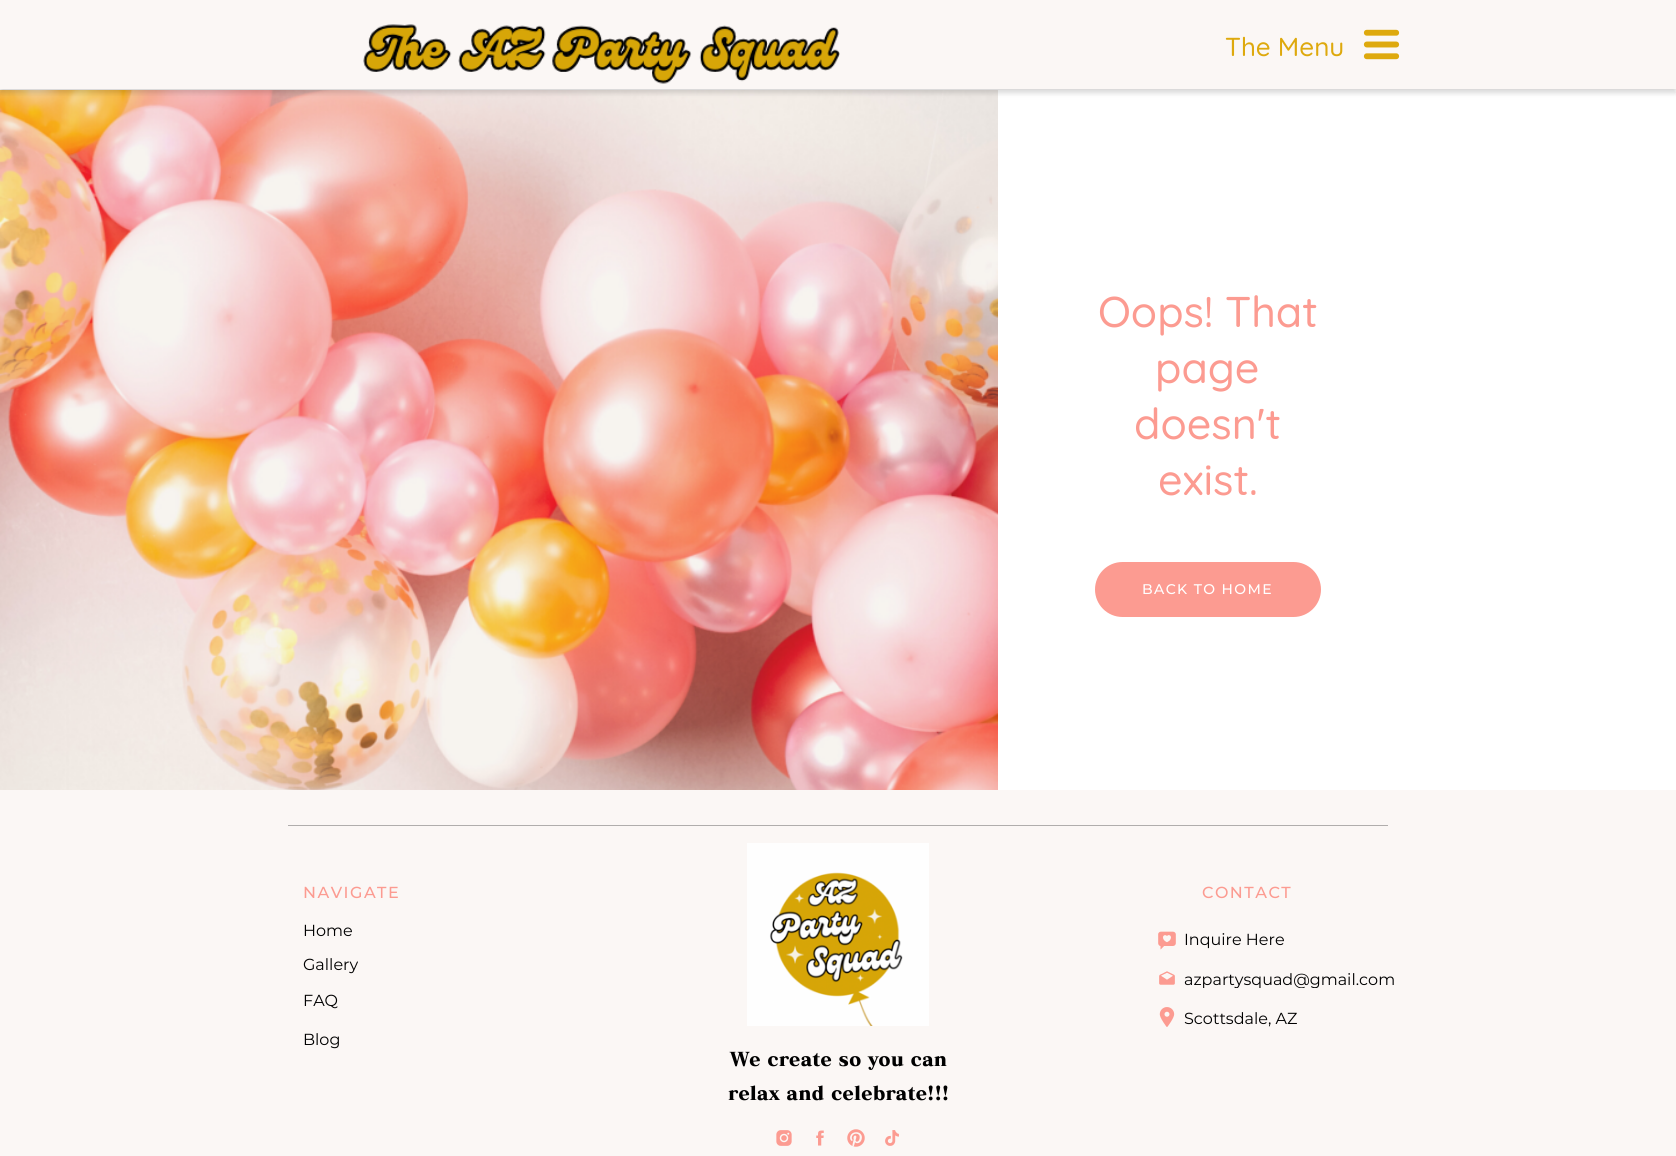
import math
import cairocffi as cairo

surface = cairo.ImageSurface(cairo.FORMAT_RGB24, 1676, 1156)
cr = cairo.Context(surface)
options = cairo.FontOptions()
options.set_hint_metrics(cairo.HINT_METRICS_OFF)
options.set_hint_style(cairo.HINT_STYLE_NONE)
cr.set_font_options(options)
cr.set_miter_limit(4)


def use_color(code):
    cr.set_source_rgb(*(v / 255 for v in bytes.fromhex(code[-6:])))


def spaced_text(x, y, s, letter, word):
    cr.move_to(x, y)
    for ch in s:
        cr.show_text(ch)
        cr.rel_move_to(letter + word * (ch == ' '), 0)


def round_rect(x, y, w, h, r):
    cr.new_sub_path()
    for i, (u, v) in enumerate([(x + w - r, y + h - r), (x + r, y + h - r), (x + r, y + r), (x + w - r, y + r)]):
        cr.arc(u, v, r, i * math.pi / 2, (i + 1) * math.pi / 2)
    cr.close_path()


def shadow(x, y, w, h, r, blur, alpha):
    cr.push_group_with_content(cairo.CONTENT_ALPHA)
    cr.set_operator(cairo.OPERATOR_SOURCE)
    for i in range(15, -16, -2):
        e = blur * i / 6
        if min(w, h) + 2 * e > 0:
            cr.set_source_rgba(0, 0, 0, alpha * math.erfc((i - 1) / 8.5) / 2)
            round_rect(x - e, y - e, w + 2 * e, h + 2 * e, max(0, min(r + e + blur * .6, min(w, h) / 2 + e)))
            cr.fill()
    cr.mask(cr.pop_group())


def picture(path, x, y, w, h):
    cr.save()
    cr.set_source_surface(cairo.ImageSurface.create_from_png(path), x, y)
    cr.rectangle(x, y, w, h)
    cr.fill()
    cr.restore()


use_color("#ffffff")
cr.paint()
use_color("#fdfcfb")
cr.rectangle(0, 89, 1676, 1)
cr.fill()
picture("img3.png", 0, 90, 998, 700)
use_color("#000000")
shadow(0, 4, 1676, 89, 0, 2.5, 0.15)
use_color("#fbf7f5")
cr.rectangle(0, 0, 1676, 89)
cr.fill()
picture("img1.png", 363, 24, 477, 60)
picture("img2.png", 1363, 29, 37, 31)
cr.select_font_face("Quicksand Light")
cr.set_font_size(26)
use_color("#dea90d")
cr.move_to(1225, 56)
cr.show_text("The Menu")
cr.set_font_size(43)
use_color("#fc9b91")
cr.move_to(1098, 327)
cr.show_text("Oops! That")
cr.move_to(1155, 383)
cr.show_text("page")
cr.move_to(1134, 439)
cr.show_text("doesn't")
cr.move_to(1158, 495)
cr.show_text("exist.")
round_rect(1095, 562, 226, 55, 27.5)
cr.fill()
cr.select_font_face("Montserrat Medium")
cr.set_font_size(14)
use_color("#ffffff")
spaced_text(1142, 594, "BACK TO HOME", 1.4, 0)
use_color("#fbf7f5")
cr.rectangle(0, 790, 1676, 366)
cr.fill()
use_color("#b0adac")
cr.rectangle(288, 825, 1100, 1)
cr.fill()
cr.set_font_size(16)
use_color("#fc9b91")
spaced_text(303, 898, "NAVIGATE", 1.5, 0)
picture("img4.png", 747, 843, 182, 183)
spaced_text(1202, 898, "CONTACT", 1.5, 0)
cr.select_font_face("Montserrat")
use_color("#000000")
cr.move_to(303, 936)
cr.show_text("Home")
picture("img5.png", 1158, 931, 18, 19)
cr.move_to(1184, 945)
cr.show_text("Inquire Here")
cr.move_to(303, 970)
cr.show_text("Gallery")
picture("img6.png", 1159, 971, 16, 14)
cr.save()
cr.rectangle(1184, 966, 220, 22)
cr.clip()
cr.move_to(1184, 985)
cr.show_text("azpartysquad@gmail.com")
cr.restore()
cr.move_to(303, 1006)
cr.show_text("FAQ")
picture("img7.png", 1159, 1007, 16, 20)
cr.move_to(1184, 1024)
cr.show_text("Scottsdale, AZ")
cr.move_to(303, 1045)
cr.show_text("Blog")
cr.select_font_face("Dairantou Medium")
cr.set_font_size(19)
cr.move_to(730, 1066)
cr.show_text("We create so you can")
cr.move_to(728, 1100)
cr.show_text("relax and celebrate!!!")
picture("img8.png", 776, 1130, 16, 16)
picture("img9.png", 816, 1130, 8, 16)
picture("img10.png", 847, 1129, 18, 18)
picture("img11.png", 885, 1130, 14, 16)
surface.write_to_png("result.png")
